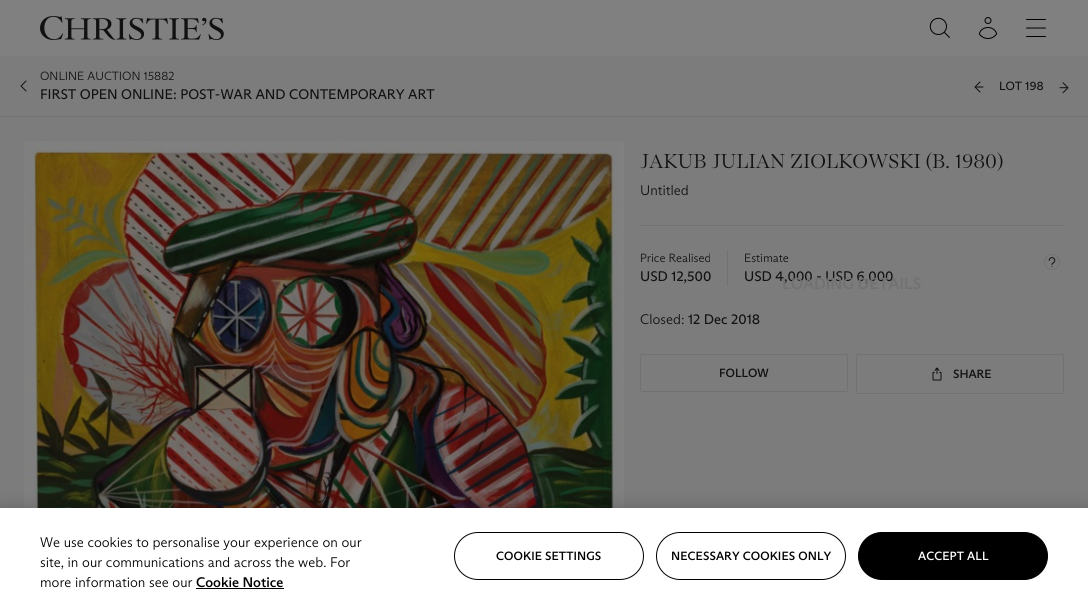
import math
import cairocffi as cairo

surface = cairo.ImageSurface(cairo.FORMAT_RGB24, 1088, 616)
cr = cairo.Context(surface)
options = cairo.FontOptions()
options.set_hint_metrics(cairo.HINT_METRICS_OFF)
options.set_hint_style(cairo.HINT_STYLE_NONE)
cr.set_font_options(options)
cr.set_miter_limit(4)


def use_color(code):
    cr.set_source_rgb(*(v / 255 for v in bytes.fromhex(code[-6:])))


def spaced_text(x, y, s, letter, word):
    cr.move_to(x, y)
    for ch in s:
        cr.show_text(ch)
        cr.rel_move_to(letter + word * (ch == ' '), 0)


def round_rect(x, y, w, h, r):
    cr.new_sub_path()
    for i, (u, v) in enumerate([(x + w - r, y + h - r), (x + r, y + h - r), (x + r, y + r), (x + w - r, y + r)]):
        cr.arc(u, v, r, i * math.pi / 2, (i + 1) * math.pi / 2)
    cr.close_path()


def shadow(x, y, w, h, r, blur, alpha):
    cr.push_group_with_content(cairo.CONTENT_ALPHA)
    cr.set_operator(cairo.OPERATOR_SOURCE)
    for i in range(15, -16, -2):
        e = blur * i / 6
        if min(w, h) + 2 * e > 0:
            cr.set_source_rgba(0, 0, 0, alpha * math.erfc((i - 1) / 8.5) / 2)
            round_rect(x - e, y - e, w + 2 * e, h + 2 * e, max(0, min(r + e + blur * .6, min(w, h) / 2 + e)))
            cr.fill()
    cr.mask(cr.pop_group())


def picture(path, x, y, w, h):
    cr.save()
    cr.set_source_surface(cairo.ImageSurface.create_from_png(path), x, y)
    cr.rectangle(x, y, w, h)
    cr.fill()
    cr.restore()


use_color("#808080")
cr.paint()
picture("img1.png", 40, 16, 184, 24)
picture("img2.png", 929, 17, 21, 21)
picture("img3.png", 978, 17, 20, 22)
picture("img4.png", 1026, 19, 20, 18)
use_color("#7c7c7c")
cr.rectangle(0, 56, 1088, 452)
cr.fill()
use_color("#717171")
cr.rectangle(0, 116, 1088, 1)
cr.fill()
cr.new_path()
cr.move_to(26, 81)
cr.line_to(21, 86)
cr.line_to(26, 91)
use_color("#111111")
cr.set_line_width(1)
cr.set_line_cap(cairo.LINE_CAP_ROUND)
cr.set_line_join(cairo.LINE_JOIN_ROUND)
cr.stroke()
cr.select_font_face("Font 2 Light")
cr.set_font_size(12)
cr.move_to(40, 80)
cr.show_text("ONLINE AUCTION 15882")
cr.select_font_face("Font")
cr.set_font_size(14)
cr.move_to(40, 99)
cr.show_text("FIRST OPEN ONLINE: POST-WAR AND CONTEMPORARY ART")
picture("img5.png", 974, 81, 10, 12)
cr.set_font_size(12)
cr.move_to(999, 90)
cr.show_text("LOT 198")
picture("img6.png", 1059, 82, 10, 12)
picture("img7.png", 24, 141, 600, 367)
use_color("#717171")
cr.rectangle(640, 225, 424, 1)
cr.fill()
cr.select_font_face("Font Light")
cr.set_font_size(20)
use_color("#111111")
cr.move_to(640, 168)
cr.show_text("JAKUB JULIAN ZIOLKOWSKI (B. 1980)")
cr.select_font_face("Font 2 Light")
cr.set_font_size(14)
cr.move_to(640, 195)
cr.show_text("Untitled")
use_color("#717171")
cr.rectangle(727, 250, 1, 36)
cr.fill()
cr.set_font_size(12)
use_color("#111111")
cr.move_to(640, 262)
cr.show_text("Price Realised")
cr.select_font_face("Font")
cr.set_font_size(14)
cr.move_to(640, 281)
cr.show_text("USD 12,500")
cr.select_font_face("Font 2 Light")
cr.set_font_size(12)
cr.move_to(744, 262)
cr.show_text("Estimate")
cr.select_font_face("Font")
cr.set_font_size(14)
cr.move_to(744, 281)
cr.show_text("USD 4,000 - USD 6,000")
cr.new_path()
cr.arc(1052, 262, 7.5, 0, 2 * math.pi)
use_color("#717171")
cr.set_line_cap(cairo.LINE_CAP_BUTT)
cr.set_line_join(cairo.LINE_JOIN_MITER)
cr.stroke()
picture("img8.png", 1048, 257, 8, 10)
cr.select_font_face("Font 2 Light")
use_color("#111111")
cr.move_to(640, 324)
cr.show_text("Closed:")
cr.select_font_face("Font")
cr.move_to(688, 324)
cr.show_text("12 Dec 2018")
cr.select_font_face("Font Medium")
cr.set_font_size(16)
use_color("#717171")
cr.move_to(782, 289)
cr.show_text("LOADING DETAILS")
round_rect(640.5, 354.5, 207, 37, 1.5)
cr.stroke()
cr.set_font_size(12)
use_color("#111111")
cr.move_to(719, 377)
cr.show_text("FOLLOW")
round_rect(856.5, 354.5, 207, 39, 1.5)
use_color("#717171")
cr.stroke()
picture("img9.png", 932, 367, 10, 14)
use_color("#111111")
cr.move_to(953, 378)
cr.show_text("SHARE")
use_color("#000000")
shadow(0, 508, 1088, 108, 0, 9, 0.2)
use_color("#ffffff")
cr.rectangle(0, 508, 1088, 108)
cr.fill()
cr.select_font_face("Font 2 Light")
cr.set_font_size(14)
use_color("#000000")
cr.move_to(40, 547)
cr.show_text("We use cookies to personalise your experience on our")
cr.move_to(40, 567)
cr.show_text("site, in our communications and across the web. For")
cr.move_to(40, 587)
cr.show_text("more information see our")
cr.select_font_face("Font Medium")
cr.move_to(196, 587)
cr.show_text("Cookie Notice")
cr.rectangle(196, 588, 88, 1)
cr.fill()
round_rect(454.5, 532.5, 189, 47, 23.5)
cr.stroke()
cr.set_font_size(12)
spaced_text(496, 560, "COOKIE SETTINGS", 0.1, 0)
round_rect(656.5, 532.5, 189, 47, 23.5)
cr.stroke()
spaced_text(671, 560, "NECESSARY COOKIES ONLY", 0.1, 0)
round_rect(858.5, 532.5, 189, 47, 23.5)
cr.fill_preserve()
cr.stroke()
use_color("#ffffff")
spaced_text(918, 560, "ACCEPT ALL", 0.1, 0)
surface.write_to_png("result.png")
